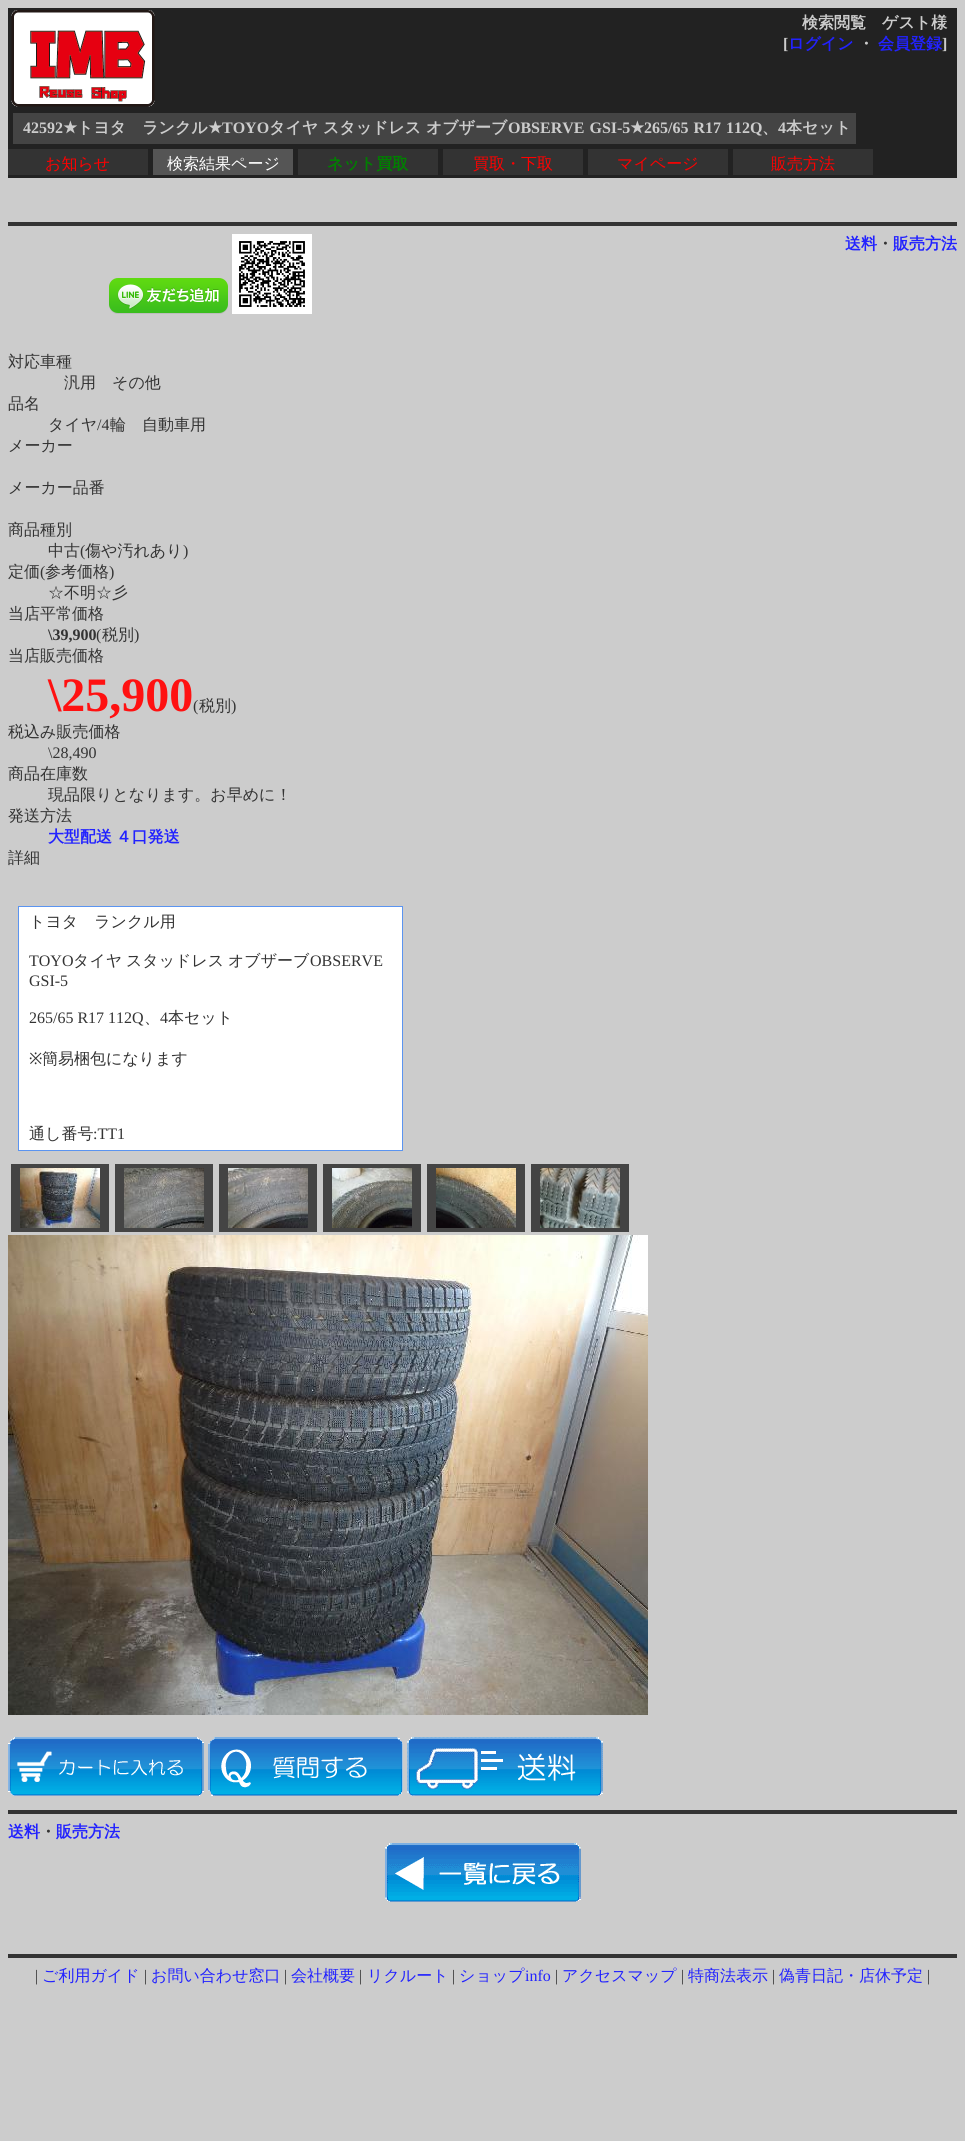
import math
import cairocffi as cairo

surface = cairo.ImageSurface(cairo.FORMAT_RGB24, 965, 2141)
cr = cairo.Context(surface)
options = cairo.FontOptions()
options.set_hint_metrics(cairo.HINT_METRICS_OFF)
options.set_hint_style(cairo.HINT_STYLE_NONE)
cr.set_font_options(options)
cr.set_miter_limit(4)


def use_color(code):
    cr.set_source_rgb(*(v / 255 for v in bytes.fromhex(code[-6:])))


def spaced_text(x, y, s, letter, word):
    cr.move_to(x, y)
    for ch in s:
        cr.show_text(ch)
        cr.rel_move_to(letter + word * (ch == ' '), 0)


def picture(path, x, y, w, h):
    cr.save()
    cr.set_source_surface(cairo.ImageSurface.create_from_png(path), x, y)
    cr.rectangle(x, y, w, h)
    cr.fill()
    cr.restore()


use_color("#cccccc")
cr.paint()
use_color("#222222")
cr.rectangle(8, 8, 949, 170)
cr.fill()
picture("img1.png", 11, 10, 144, 97)
cr.select_font_face("WenQuanYi Zen Hei", cairo.FONT_SLANT_NORMAL, cairo.FONT_WEIGHT_BOLD)
cr.set_font_size(16)
use_color("#cccccc")
cr.move_to(802, 28)
cr.show_text("検索閲覧　ゲスト様")
cr.select_font_face("Liberation Serif", cairo.FONT_SLANT_NORMAL, cairo.FONT_WEIGHT_BOLD)
cr.move_to(783, 49)
cr.show_text("[")
cr.select_font_face("WenQuanYi Zen Hei", cairo.FONT_SLANT_NORMAL, cairo.FONT_WEIGHT_BOLD)
use_color("#2222ff")
cr.move_to(788, 49)
cr.show_text("ログイン")
use_color("#cccccc")
cr.move_to(858, 49)
cr.show_text("・")
use_color("#2222ff")
cr.move_to(878, 49)
cr.show_text("会員登録")
cr.select_font_face("Liberation Serif", cairo.FONT_SLANT_NORMAL, cairo.FONT_WEIGHT_BOLD)
use_color("#cccccc")
cr.move_to(942, 49)
cr.show_text("]")
use_color("#444444")
cr.rectangle(13, 113, 843, 31)
cr.fill()
use_color("#cccccc")
cr.move_to(23, 133)
cr.show_text("42592")
cr.select_font_face("DejaVu Sans", cairo.FONT_SLANT_NORMAL, cairo.FONT_WEIGHT_BOLD)
cr.move_to(63, 133)
cr.show_text("★")
cr.select_font_face("WenQuanYi Zen Hei", cairo.FONT_SLANT_NORMAL, cairo.FONT_WEIGHT_BOLD)
cr.move_to(77, 133)
cr.show_text("トヨタ　ランクル")
cr.select_font_face("DejaVu Sans", cairo.FONT_SLANT_NORMAL, cairo.FONT_WEIGHT_BOLD)
cr.move_to(208, 133)
cr.show_text("★")
cr.select_font_face("Liberation Serif", cairo.FONT_SLANT_NORMAL, cairo.FONT_WEIGHT_BOLD)
cr.move_to(222, 133)
cr.show_text("TOYO")
cr.select_font_face("WenQuanYi Zen Hei", cairo.FONT_SLANT_NORMAL, cairo.FONT_WEIGHT_BOLD)
cr.move_to(269, 133)
cr.show_text("タイヤ スタッドレス オブザーブ")
cr.select_font_face("Liberation Serif", cairo.FONT_SLANT_NORMAL, cairo.FONT_WEIGHT_BOLD)
spaced_text(508, 133, "OBSERVE GSI-5", 0, 1)
cr.select_font_face("DejaVu Sans", cairo.FONT_SLANT_NORMAL, cairo.FONT_WEIGHT_BOLD)
cr.move_to(630, 133)
cr.show_text("★")
cr.select_font_face("Liberation Serif", cairo.FONT_SLANT_NORMAL, cairo.FONT_WEIGHT_BOLD)
spaced_text(644, 133, "265/65 R17 112Q", 0, 1)
cr.select_font_face("WenQuanYi Zen Hei", cairo.FONT_SLANT_NORMAL, cairo.FONT_WEIGHT_BOLD)
cr.move_to(762, 133)
cr.show_text("、")
cr.select_font_face("Liberation Serif", cairo.FONT_SLANT_NORMAL, cairo.FONT_WEIGHT_BOLD)
cr.move_to(778, 133)
cr.show_text("4")
cr.select_font_face("WenQuanYi Zen Hei", cairo.FONT_SLANT_NORMAL, cairo.FONT_WEIGHT_BOLD)
cr.move_to(786, 133)
cr.show_text("本セット")
use_color("#333333")
cr.rectangle(8, 149, 140, 26)
cr.fill()
cr.select_font_face("WenQuanYi Zen Hei Medium")
use_color("#ff0000")
cr.move_to(45, 169)
cr.show_text("お知らせ")
use_color("#555555")
cr.rectangle(153, 149, 140, 26)
cr.fill()
use_color("#ffffff")
cr.move_to(167, 169)
cr.show_text("検索結果ページ")
use_color("#333333")
cr.rectangle(298, 149, 140, 26)
cr.fill()
cr.select_font_face("WenQuanYi Zen Hei", cairo.FONT_SLANT_NORMAL, cairo.FONT_WEIGHT_BOLD)
use_color("#008000")
cr.move_to(327, 169)
cr.show_text("ネット買取")
use_color("#333333")
cr.rectangle(443, 149, 140, 26)
cr.fill()
cr.select_font_face("WenQuanYi Zen Hei Medium")
use_color("#ff0000")
cr.move_to(473, 169)
cr.show_text("買取・下取")
use_color("#333333")
cr.rectangle(588, 149, 140, 26)
cr.fill()
use_color("#ff0000")
cr.move_to(617, 169)
cr.show_text("マイページ")
use_color("#333333")
cr.rectangle(733, 149, 140, 26)
cr.fill()
use_color("#ff0000")
cr.move_to(771, 169)
cr.show_text("販売方法")
use_color("#333333")
cr.rectangle(8, 222, 949, 4)
cr.fill()
cr.select_font_face("WenQuanYi Zen Hei", cairo.FONT_SLANT_NORMAL, cairo.FONT_WEIGHT_BOLD)
use_color("#2222ff")
cr.move_to(845, 249)
cr.show_text("送料")
use_color("#333333")
cr.move_to(877, 249)
cr.show_text("・")
use_color("#2222ff")
cr.move_to(893, 249)
cr.show_text("販売方法")
picture("img2.png", 109, 278, 119, 36)
picture("img3.png", 232, 234, 80, 80)
cr.select_font_face("WenQuanYi Zen Hei Medium")
use_color("#333333")
cr.move_to(8, 367)
cr.show_text("対応車種")
cr.move_to(64, 388)
cr.show_text("汎用　その他")
cr.move_to(8, 409)
cr.show_text("品名")
cr.move_to(48, 430)
cr.show_text("タイヤ")
cr.select_font_face("Liberation Serif")
cr.move_to(97, 430)
cr.show_text("/4")
cr.select_font_face("WenQuanYi Zen Hei Medium")
cr.move_to(110, 430)
cr.show_text("輪　自動車用")
cr.move_to(8, 451)
cr.show_text("メーカー")
cr.move_to(8, 493)
cr.show_text("メーカー品番")
cr.move_to(8, 535)
cr.show_text("商品種別")
cr.move_to(48, 556)
cr.show_text("中古")
cr.select_font_face("Liberation Serif")
cr.move_to(80, 556)
cr.show_text("(")
cr.select_font_face("WenQuanYi Zen Hei Medium")
cr.move_to(85, 556)
cr.show_text("傷や汚れあり")
cr.select_font_face("Liberation Serif")
cr.move_to(183, 556)
cr.show_text(")")
cr.select_font_face("WenQuanYi Zen Hei Medium")
cr.move_to(8, 577)
cr.show_text("定価")
cr.select_font_face("Liberation Serif")
cr.move_to(40, 577)
cr.show_text("(")
cr.select_font_face("WenQuanYi Zen Hei Medium")
cr.move_to(45, 577)
cr.show_text("参考価格")
cr.select_font_face("Liberation Serif")
cr.move_to(109, 577)
cr.show_text(")")
cr.select_font_face("WenQuanYi Zen Hei Medium")
cr.move_to(48, 598)
cr.show_text("☆不明☆彡")
cr.move_to(8, 619)
cr.show_text("当店平常価格")
cr.select_font_face("Liberation Serif", cairo.FONT_SLANT_NORMAL, cairo.FONT_WEIGHT_BOLD)
cr.move_to(48, 640)
cr.show_text("\\39,900")
cr.select_font_face("Liberation Serif")
cr.move_to(96, 640)
cr.show_text("(")
cr.select_font_face("WenQuanYi Zen Hei Medium")
cr.move_to(102, 640)
cr.show_text("税別")
cr.select_font_face("Liberation Serif")
cr.move_to(134, 640)
cr.show_text(")")
cr.select_font_face("WenQuanYi Zen Hei Medium")
cr.move_to(8, 661)
cr.show_text("当店販売価格")
cr.select_font_face("Liberation Serif", cairo.FONT_SLANT_NORMAL, cairo.FONT_WEIGHT_BOLD)
cr.set_font_size(48)
use_color("#ff1111")
cr.move_to(48, 711)
cr.show_text("\\25,900")
cr.select_font_face("Liberation Serif")
cr.set_font_size(16)
use_color("#333333")
cr.move_to(193, 711)
cr.show_text("(")
cr.select_font_face("WenQuanYi Zen Hei Medium")
cr.move_to(199, 711)
cr.show_text("税別")
cr.select_font_face("Liberation Serif")
cr.move_to(231, 711)
cr.show_text(")")
cr.select_font_face("WenQuanYi Zen Hei Medium")
cr.move_to(8, 737)
cr.show_text("税込み販売価格")
cr.select_font_face("Liberation Serif")
cr.move_to(48, 758)
cr.show_text("\\28,490")
cr.select_font_face("WenQuanYi Zen Hei Medium")
cr.move_to(8, 779)
cr.show_text("商品在庫数")
cr.move_to(48, 800)
cr.show_text("現品限りとなります。お早めに！")
cr.move_to(8, 821)
cr.show_text("発送方法")
cr.select_font_face("WenQuanYi Zen Hei", cairo.FONT_SLANT_NORMAL, cairo.FONT_WEIGHT_BOLD)
use_color("#2222ff")
spaced_text(48, 842, "大型配送 ４口発送", 0, -1)
cr.select_font_face("WenQuanYi Zen Hei Medium")
use_color("#333333")
cr.move_to(8, 863)
cr.show_text("詳細")
use_color("#ffffff")
cr.rectangle(18.5, 906.5, 384, 244)
cr.fill_preserve()
use_color("#5b94f0")
cr.set_line_width(1)
cr.stroke()
use_color("#333333")
cr.move_to(29, 927)
cr.show_text("トヨタ　ランクル用")
cr.select_font_face("Liberation Serif")
cr.move_to(29, 966)
cr.show_text("TOYO")
cr.select_font_face("WenQuanYi Zen Hei Medium")
spaced_text(73, 966, "タイヤ スタッドレス オブザーブ", 0, -1)
cr.select_font_face("Liberation Serif")
cr.move_to(310, 966)
cr.show_text("OBSERVE")
cr.move_to(29, 986)
cr.show_text("GSI-5")
cr.move_to(29, 1023)
cr.show_text("265/65 R17 112Q")
cr.select_font_face("WenQuanYi Zen Hei Medium")
cr.move_to(144, 1023)
cr.show_text("、")
cr.select_font_face("Liberation Serif")
cr.move_to(160, 1023)
cr.show_text("4")
cr.select_font_face("WenQuanYi Zen Hei Medium")
cr.move_to(168, 1023)
cr.show_text("本セット")
cr.select_font_face("Noto Sans")
cr.move_to(29, 1064)
cr.show_text("※")
cr.select_font_face("WenQuanYi Zen Hei Medium")
cr.move_to(42, 1064)
cr.show_text("簡易梱包になります")
cr.move_to(29, 1139)
cr.show_text("通し番号")
cr.select_font_face("Liberation Serif")
cr.move_to(93, 1139)
cr.show_text(":TT1")
use_color("#444444")
cr.rectangle(11, 1164, 98, 68)
cr.fill()
picture("img4.png", 20, 1168, 80, 60)
cr.rectangle(115, 1164, 98, 68)
cr.fill()
picture("img5.png", 124, 1168, 80, 60)
cr.rectangle(219, 1164, 98, 68)
cr.fill()
picture("img6.png", 228, 1168, 80, 60)
cr.rectangle(323, 1164, 98, 68)
cr.fill()
picture("img7.png", 332, 1168, 80, 60)
cr.rectangle(427, 1164, 98, 68)
cr.fill()
picture("img8.png", 436, 1168, 80, 60)
cr.rectangle(531, 1164, 98, 68)
cr.fill()
picture("img9.png", 540, 1168, 80, 60)
picture("img10.png", 8, 1235, 640, 480)
picture("img11.png", 8, 1737, 196, 59)
picture("img12.png", 208, 1737, 195, 59)
picture("img13.png", 407, 1737, 196, 59)
use_color("#333333")
cr.rectangle(8, 1810, 949, 4)
cr.fill()
cr.select_font_face("WenQuanYi Zen Hei", cairo.FONT_SLANT_NORMAL, cairo.FONT_WEIGHT_BOLD)
use_color("#2222ff")
cr.move_to(8, 1837)
cr.show_text("送料")
use_color("#333333")
cr.move_to(40, 1837)
cr.show_text("・")
use_color("#2222ff")
cr.move_to(56, 1837)
cr.show_text("販売方法")
picture("img14.png", 385, 1843, 196, 59)
use_color("#333333")
cr.rectangle(8, 1954, 949, 4)
cr.fill()
cr.select_font_face("Liberation Serif")
cr.move_to(35, 1981)
cr.show_text("|")
cr.select_font_face("WenQuanYi Zen Hei Medium")
use_color("#2222ff")
cr.move_to(42, 1981)
cr.show_text("ご利用ガイド")
cr.select_font_face("Liberation Serif")
use_color("#333333")
cr.move_to(144, 1981)
cr.show_text("|")
cr.select_font_face("WenQuanYi Zen Hei Medium")
use_color("#2222ff")
cr.move_to(151, 1981)
cr.show_text("お問い合わせ窓口")
cr.select_font_face("Liberation Serif")
use_color("#333333")
cr.move_to(284, 1981)
cr.show_text("|")
cr.select_font_face("WenQuanYi Zen Hei Medium")
use_color("#2222ff")
cr.move_to(291, 1981)
cr.show_text("会社概要")
cr.select_font_face("Liberation Serif")
use_color("#333333")
cr.move_to(359, 1981)
cr.show_text("|")
cr.select_font_face("WenQuanYi Zen Hei Medium")
use_color("#2222ff")
cr.move_to(367, 1981)
cr.show_text("リクルート")
cr.select_font_face("Liberation Serif")
use_color("#333333")
cr.move_to(452, 1981)
cr.show_text("|")
cr.select_font_face("WenQuanYi Zen Hei Medium")
use_color("#2222ff")
cr.move_to(459, 1981)
cr.show_text("ショップ")
cr.select_font_face("Liberation Serif")
cr.move_to(525, 1981)
cr.show_text("info")
use_color("#333333")
cr.move_to(555, 1981)
cr.show_text("|")
cr.select_font_face("WenQuanYi Zen Hei Medium")
use_color("#2222ff")
cr.move_to(562, 1981)
cr.show_text("アクセスマップ")
cr.select_font_face("Liberation Serif")
use_color("#333333")
cr.move_to(681, 1981)
cr.show_text("|")
cr.select_font_face("WenQuanYi Zen Hei Medium")
use_color("#2222ff")
cr.move_to(688, 1981)
cr.show_text("特商法表示")
cr.select_font_face("Liberation Serif")
use_color("#333333")
cr.move_to(772, 1981)
cr.show_text("|")
cr.select_font_face("WenQuanYi Zen Hei Medium")
use_color("#2222ff")
cr.move_to(779, 1981)
cr.show_text("偽青日記・店休予定")
cr.select_font_face("Liberation Serif")
use_color("#333333")
cr.move_to(927, 1981)
cr.show_text("|")
surface.write_to_png("result.png")
